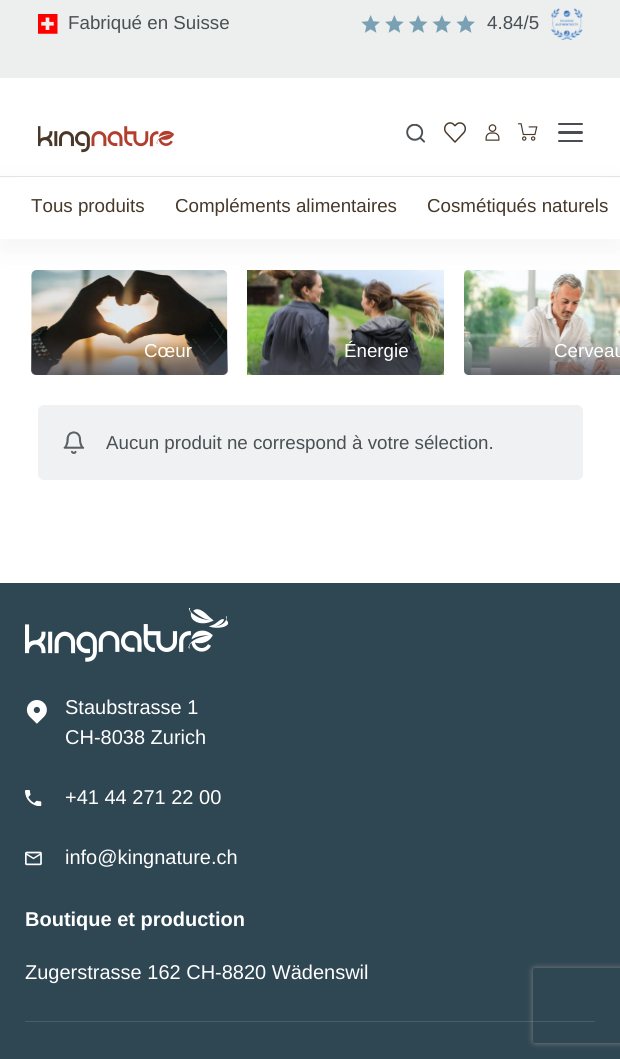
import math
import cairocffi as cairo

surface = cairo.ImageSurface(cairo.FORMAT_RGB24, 620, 1059)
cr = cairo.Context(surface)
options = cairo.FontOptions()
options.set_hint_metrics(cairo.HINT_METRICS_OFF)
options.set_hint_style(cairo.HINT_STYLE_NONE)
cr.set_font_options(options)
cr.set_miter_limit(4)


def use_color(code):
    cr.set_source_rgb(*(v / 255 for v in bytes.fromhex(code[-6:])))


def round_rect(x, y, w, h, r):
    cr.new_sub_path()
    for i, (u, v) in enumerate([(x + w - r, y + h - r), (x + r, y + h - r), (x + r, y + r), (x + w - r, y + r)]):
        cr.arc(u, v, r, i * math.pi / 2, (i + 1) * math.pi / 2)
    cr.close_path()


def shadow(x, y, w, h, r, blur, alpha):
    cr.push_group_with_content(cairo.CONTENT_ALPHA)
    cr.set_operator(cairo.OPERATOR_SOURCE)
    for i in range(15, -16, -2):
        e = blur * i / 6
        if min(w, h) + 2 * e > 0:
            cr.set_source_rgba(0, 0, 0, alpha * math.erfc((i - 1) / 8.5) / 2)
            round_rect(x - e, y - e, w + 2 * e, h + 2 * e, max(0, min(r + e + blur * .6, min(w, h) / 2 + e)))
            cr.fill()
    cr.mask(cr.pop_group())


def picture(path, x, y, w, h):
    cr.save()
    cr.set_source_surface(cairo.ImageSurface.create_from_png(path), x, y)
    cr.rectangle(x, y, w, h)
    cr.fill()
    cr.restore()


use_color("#ffffff")
cr.paint()
use_color("#edeeee")
cr.rectangle(0, 0, 620, 78)
cr.fill()
picture("img1.png", 38, 14, 20, 20)
cr.select_font_face("Liberation Sans")
cr.set_font_size(18.75)
use_color("#495155")
cr.move_to(68, 29)
cr.show_text("Fabriqué en Suisse")
picture("img2.png", 361, 15, 114, 18)
cr.move_to(487, 29)
cr.show_text("4.84/5")
picture("img3.png", 551, 8, 32, 32)
picture("img9.png", 31, 270, 197, 105)
gradient = cairo.LinearGradient(129, 270, 129, 375)
gradient.add_color_stop_rgba(0.63, 0.286, 0.294, 0.333, 0)
gradient.add_color_stop_rgba(1, 0.286, 0.294, 0.333, 0.8)
cr.set_source(gradient)
round_rect(31, 270, 197, 105, 5)
cr.fill()
picture("img10.png", 247, 270, 197, 105)
picture("img11.png", 464, 270, 156, 105)
gradient = cairo.LinearGradient(562, 270, 562, 375)
gradient.add_color_stop_rgba(0.63, 0.286, 0.294, 0.333, 0)
gradient.add_color_stop_rgba(1, 0.286, 0.294, 0.333, 0.8)
cr.set_source(gradient)
cr.new_path()
cr.move_to(469, 270)
cr.line_to(620, 270)
cr.line_to(620, 375)
cr.line_to(469, 375)
cr.curve_to(466, 375, 464, 373, 464, 370)
cr.line_to(464, 275)
cr.curve_to(464, 272, 466, 270, 469, 270)
cr.close_path()
cr.fill()
use_color("#2c3e50")
shadow(0, 185, 620, 66, 0, 12.5, 0.05)
use_color("#ffffff")
cr.rectangle(17, 177, 586, 1)
cr.fill()
use_color("#e4e4e4")
cr.rectangle(0, 176, 620, 1)
cr.fill()
picture("img4.png", 38, 126, 137, 27)
picture("img5.png", 406, 124, 19, 19)
picture("img6.png", 444, 122, 22, 21)
picture("img7.png", 485, 124, 15, 17)
picture("img8.png", 518, 123, 20, 18)
use_color("#494b55")
round_rect(558, 123, 25, 2, 1)
cr.fill()
round_rect(558, 131, 25, 3, 1.5)
cr.fill()
round_rect(558, 140, 25, 2, 1)
cr.fill()
use_color("#ffffff")
cr.rectangle(0, 178, 620, 61)
cr.fill()
use_color("#47382a")
cr.move_to(31, 212)
cr.show_text("Tous produits")
cr.move_to(175, 212)
cr.show_text("Compléments alimentaires")
cr.move_to(427, 212)
cr.show_text("Cosmétiqués naturels")
use_color("#ffffff")
cr.move_to(144, 357)
cr.show_text("Cœur")
cr.move_to(344, 357)
cr.show_text("Énergie")
cr.move_to(554, 357)
cr.show_text("Cerveau")
use_color("#f0f1f3")
round_rect(38, 405, 545, 75, 6)
cr.fill()
picture("img12.png", 63, 431, 22, 23)
use_color("#495155")
cr.move_to(106, 449)
cr.show_text("Aucun produit ne correspond à votre sélection.")
use_color("#2f4753")
cr.rectangle(0, 583, 620, 476)
cr.fill()
picture("img13.png", 25, 608, 204, 54)
picture("img14.png", 26, 700, 21, 24)
cr.set_font_size(20)
use_color("#ffffff")
cr.move_to(65, 714)
cr.show_text("Staubstrasse 1")
cr.move_to(65, 744)
cr.show_text("CH-8038 Zurich")
picture("img15.png", 25, 790, 17, 16)
cr.move_to(65, 804)
cr.show_text("+41 44 271 22 00")
picture("img16.png", 25, 851, 17, 15)
cr.move_to(65, 864)
cr.show_text("info@kingnature.ch")
cr.select_font_face("Liberation Sans", cairo.FONT_SLANT_NORMAL, cairo.FONT_WEIGHT_BOLD)
cr.move_to(25, 926)
cr.show_text("Boutique et production")
cr.select_font_face("Liberation Sans")
cr.move_to(25, 979)
cr.show_text("Zugerstrasse 162 CH-8820 Wädenswil")
cr.save()
cr.set_fill_rule(cairo.FILL_RULE_EVEN_ODD)
cr.new_path()
cr.move_to(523, 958)
cr.line_to(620, 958)
cr.line_to(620, 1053)
cr.line_to(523, 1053)
cr.close_path()
cr.move_to(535.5, 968)
cr.line_to(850.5, 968)
cr.curve_to(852, 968, 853, 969, 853, 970.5)
cr.line_to(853, 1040.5)
cr.curve_to(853, 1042, 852, 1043, 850.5, 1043)
cr.line_to(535.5, 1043)
cr.curve_to(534, 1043, 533, 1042, 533, 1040.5)
cr.line_to(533, 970.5)
cr.curve_to(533, 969, 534, 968, 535.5, 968)
cr.close_path()
cr.clip()
use_color("#808080")
shadow(533, 968, 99, 75, 2.5, 3, 1)
cr.restore()
cr.set_source_rgba(1, 1, 1, 0.12)
cr.rectangle(25, 1021, 570, 1)
cr.fill()
surface.write_to_png("result.png")
